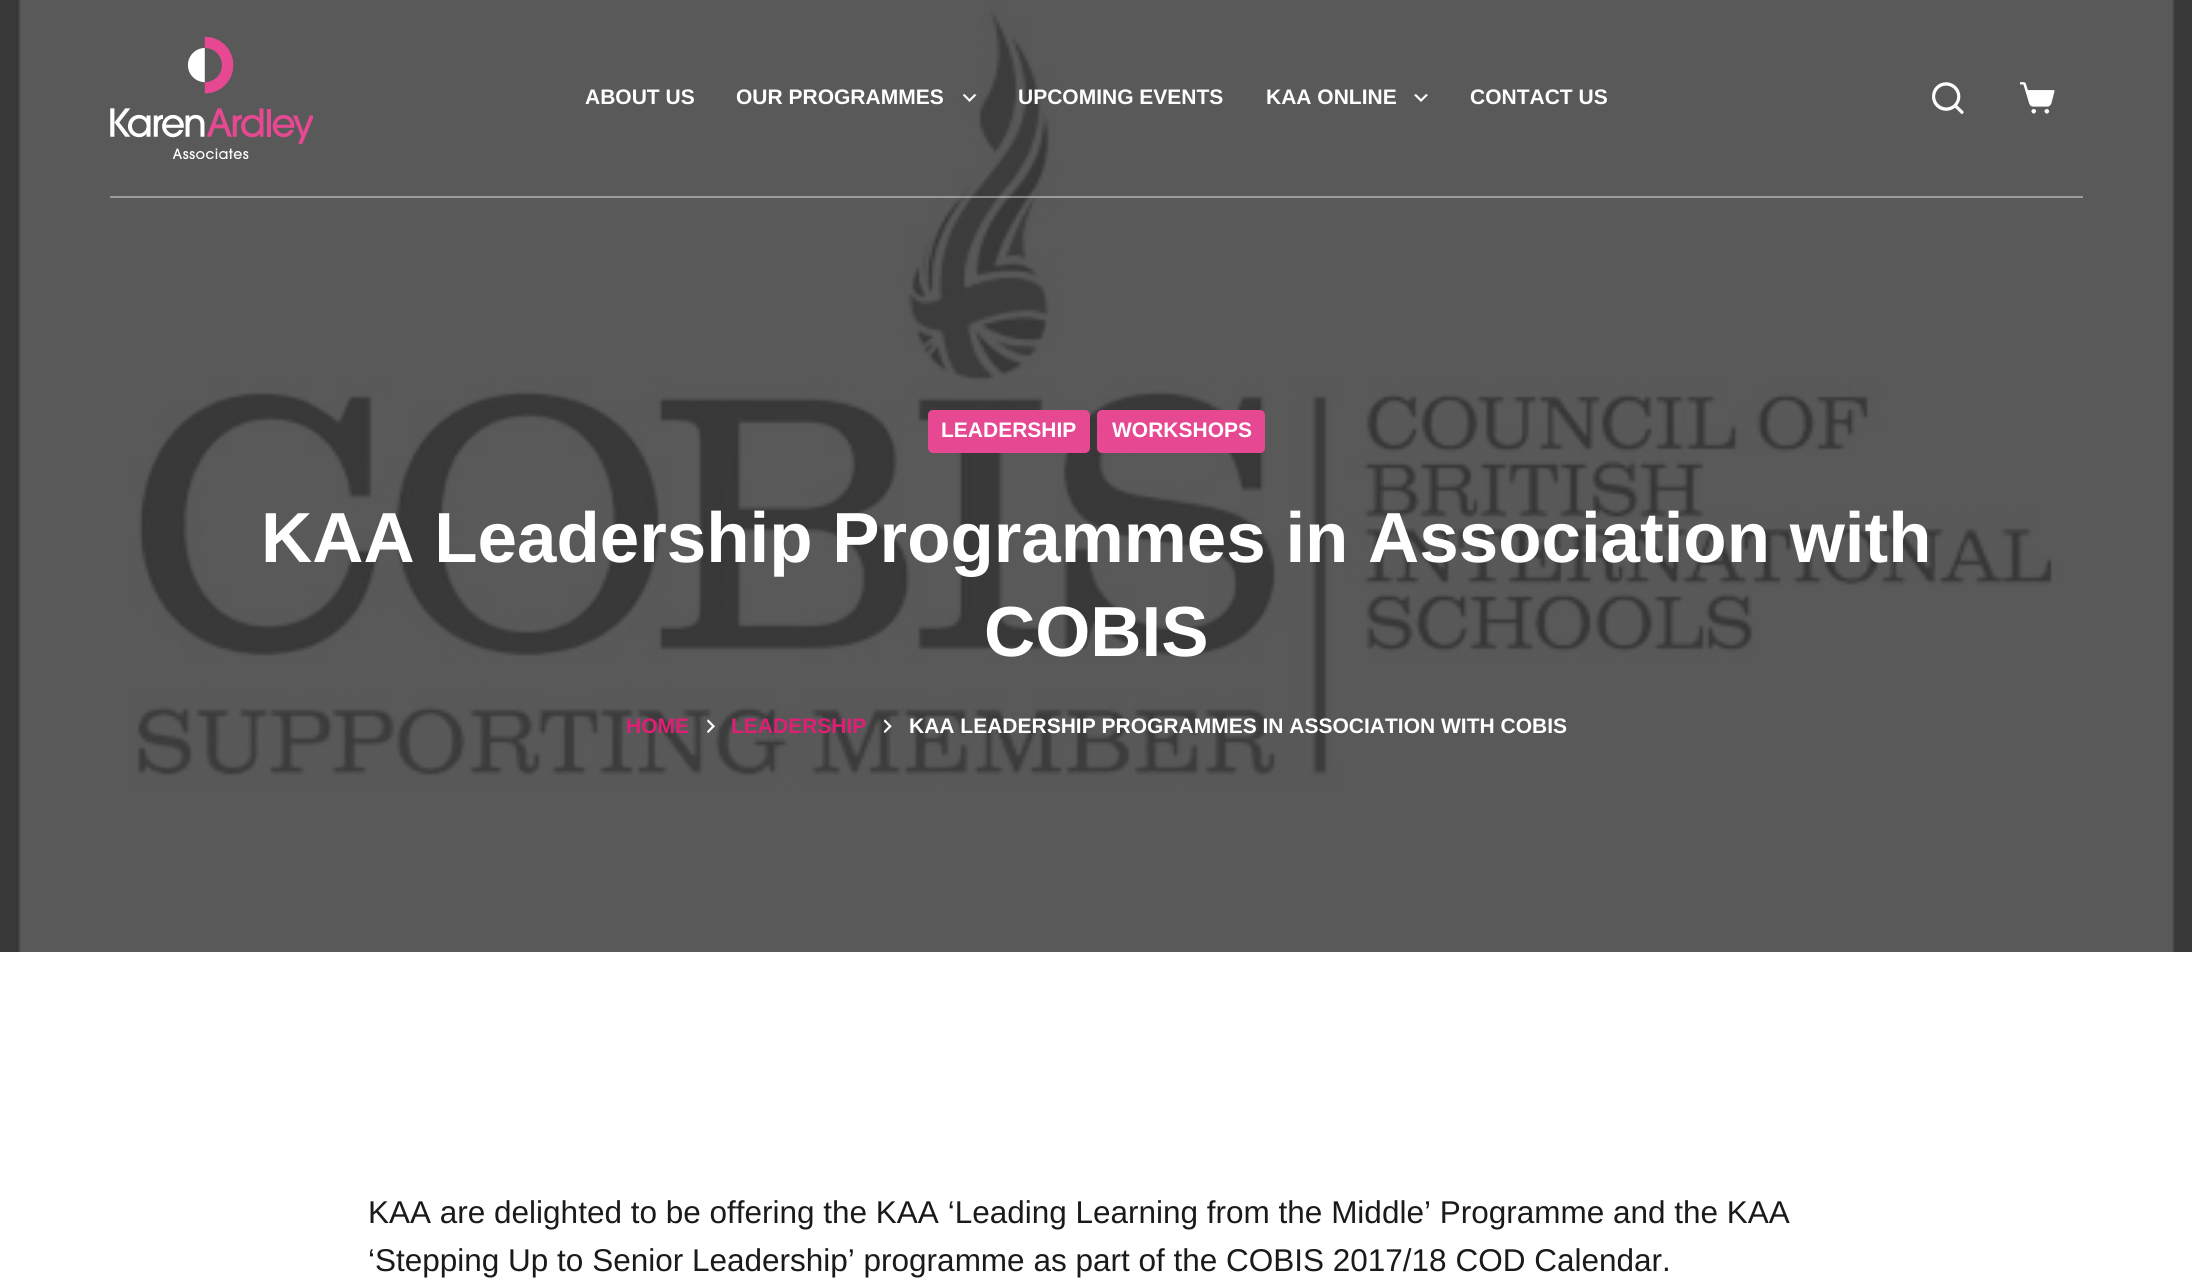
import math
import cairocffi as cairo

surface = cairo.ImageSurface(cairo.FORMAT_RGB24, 2192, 1280)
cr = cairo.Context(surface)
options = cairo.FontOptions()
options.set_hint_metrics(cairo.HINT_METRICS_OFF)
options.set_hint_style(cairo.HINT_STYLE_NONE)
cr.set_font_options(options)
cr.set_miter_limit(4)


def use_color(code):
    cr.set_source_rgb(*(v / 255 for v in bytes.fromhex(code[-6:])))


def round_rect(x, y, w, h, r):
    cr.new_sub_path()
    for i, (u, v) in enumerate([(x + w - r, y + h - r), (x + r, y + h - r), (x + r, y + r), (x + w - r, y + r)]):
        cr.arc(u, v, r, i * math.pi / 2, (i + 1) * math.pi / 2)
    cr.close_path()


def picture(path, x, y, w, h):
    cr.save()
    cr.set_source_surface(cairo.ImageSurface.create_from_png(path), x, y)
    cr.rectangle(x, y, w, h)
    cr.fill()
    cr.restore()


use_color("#ffffff")
cr.paint()
picture("img6.png", 0, 0, 2192, 952)
cr.set_source_rgba(1, 1, 1, 0.4)
cr.rectangle(110, 196, 1973, 2)
cr.fill()
picture("img1.png", 110, 37, 203, 122)
cr.select_font_face("Liberation Sans", cairo.FONT_SLANT_NORMAL, cairo.FONT_WEIGHT_BOLD)
cr.set_font_size(21)
use_color("#ffffff")
cr.move_to(585, 104)
cr.show_text("ABOUT US")
cr.move_to(736, 104)
cr.show_text("OUR PROGRAMMES")
picture("img2.png", 963, 94, 14, 8)
cr.move_to(1018, 104)
cr.show_text("UPCOMING EVENTS")
cr.move_to(1266, 104)
cr.show_text("KAA ONLINE")
picture("img3.png", 1414, 94, 14, 8)
cr.move_to(1470, 104)
cr.show_text("CONTACT US")
picture("img4.png", 1932, 82, 32, 32)
picture("img5.png", 2020, 82, 35, 32)
use_color("#e74892")
round_rect(928, 410, 162, 43, 5)
cr.fill()
use_color("#ffffff")
cr.move_to(941, 437)
cr.show_text("LEADERSHIP")
use_color("#e74892")
round_rect(1097, 410, 168, 43, 5)
cr.fill()
use_color("#ffffff")
cr.move_to(1112, 437)
cr.show_text("WORKSHOPS")
cr.set_font_size(70.9)
cr.move_to(261, 562)
cr.show_text("KAA Leadership Programmes in Association with")
cr.move_to(984, 656)
cr.show_text("COBIS")
cr.set_font_size(21)
use_color("#df1f75")
cr.move_to(626, 733)
cr.show_text("HOME")
picture("img7.png", 707, 719, 8, 14)
cr.move_to(731, 733)
cr.show_text("LEADERSHIP")
picture("img8.png", 883, 719, 9, 14)
use_color("#ffffff")
cr.move_to(909, 733)
cr.show_text("KAA LEADERSHIP PROGRAMMES IN ASSOCIATION WITH COBIS")
cr.select_font_face("Liberation Sans")
cr.set_font_size(31.5)
use_color("#1a1a1a")
cr.move_to(368, 1223)
cr.show_text("KAA are delighted to be offering the KAA ‘Leading Learning from the Middle’ Programme and the KAA")
cr.move_to(368, 1271)
cr.show_text("‘Stepping Up to Senior Leadership’ programme as part of the COBIS 2017/18 COD Calendar.")
surface.write_to_png("result.png")
